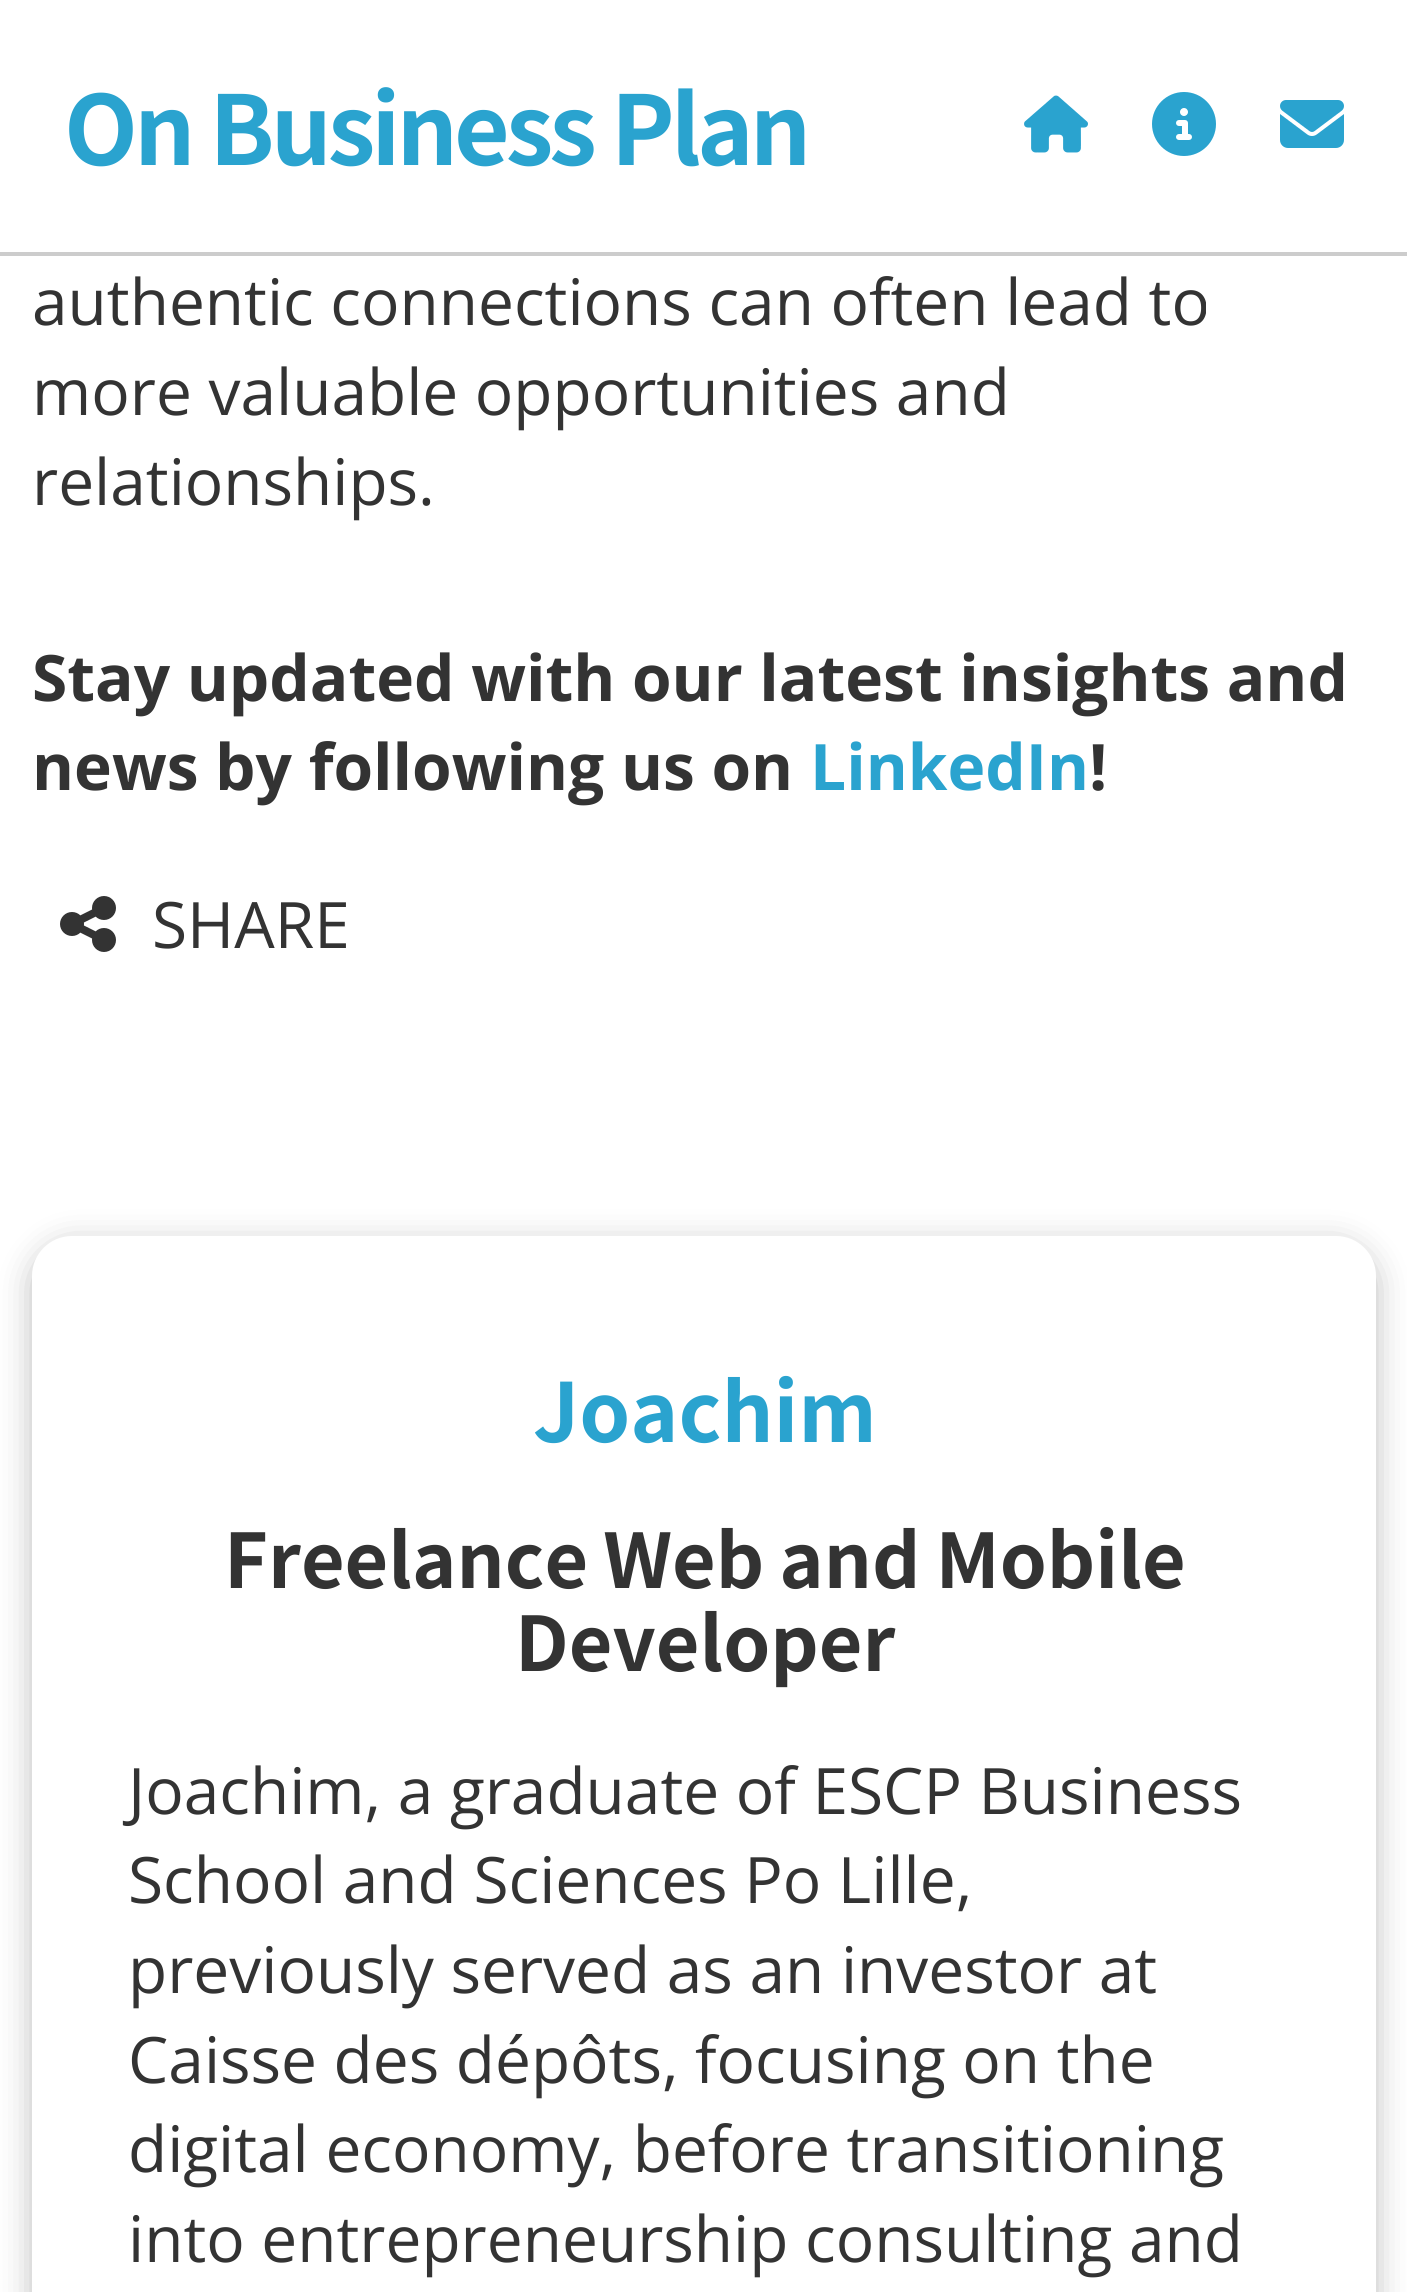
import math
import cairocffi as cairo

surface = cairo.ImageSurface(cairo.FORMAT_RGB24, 1407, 2292)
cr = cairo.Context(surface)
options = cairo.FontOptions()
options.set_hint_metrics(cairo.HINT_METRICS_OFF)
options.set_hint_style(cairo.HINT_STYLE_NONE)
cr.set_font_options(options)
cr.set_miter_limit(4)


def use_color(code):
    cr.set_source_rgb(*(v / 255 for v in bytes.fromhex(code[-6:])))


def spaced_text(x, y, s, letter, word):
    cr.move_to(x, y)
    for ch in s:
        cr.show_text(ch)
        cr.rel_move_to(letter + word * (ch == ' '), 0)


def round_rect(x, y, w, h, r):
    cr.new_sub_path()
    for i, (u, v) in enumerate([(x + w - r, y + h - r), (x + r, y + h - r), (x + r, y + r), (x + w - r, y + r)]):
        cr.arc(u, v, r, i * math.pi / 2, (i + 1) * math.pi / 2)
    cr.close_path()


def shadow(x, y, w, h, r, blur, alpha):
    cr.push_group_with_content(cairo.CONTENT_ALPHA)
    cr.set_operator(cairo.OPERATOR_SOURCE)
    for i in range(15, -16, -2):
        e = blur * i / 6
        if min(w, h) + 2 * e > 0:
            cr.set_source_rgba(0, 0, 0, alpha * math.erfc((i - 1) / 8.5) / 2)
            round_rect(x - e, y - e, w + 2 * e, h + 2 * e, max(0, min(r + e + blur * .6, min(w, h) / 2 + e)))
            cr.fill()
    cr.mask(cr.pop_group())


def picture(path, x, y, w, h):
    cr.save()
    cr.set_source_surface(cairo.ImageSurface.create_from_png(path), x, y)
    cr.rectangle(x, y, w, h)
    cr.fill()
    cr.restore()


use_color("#ffffff")
cr.paint()
use_color("#cccccc")
cr.rectangle(0, 252, 1407, 4)
cr.fill()
cr.select_font_face("Noto Sans JP Thin")
cr.set_font_size(96)
use_color("#2aa3cf")
spaced_text(64, 165, "On Business Plan", -4, 0)
picture("img1.png", 1024, 95, 64, 58)
picture("img2.png", 1152, 92, 64, 64)
picture("img3.png", 1280, 100, 64, 48)
cr.select_font_face("Open Sans")
cr.set_font_size(64)
use_color("#333333")
cr.move_to(32, 325)
cr.show_text("authentic connections can often lead to")
cr.move_to(32, 415)
cr.show_text("more valuable opportunities and")
cr.move_to(32, 505)
cr.show_text("relationships.")
cr.select_font_face("Open Sans", cairo.FONT_SLANT_NORMAL, cairo.FONT_WEIGHT_BOLD)
cr.move_to(32, 701)
cr.show_text("Stay updated with our latest insights and")
cr.move_to(32, 790)
cr.show_text("news by following us on")
use_color("#2aa3cf")
cr.move_to(810, 790)
cr.show_text("LinkedIn")
use_color("#333333")
cr.move_to(1089, 790)
cr.show_text("!")
picture("img4.png", 60, 896, 56, 56)
cr.select_font_face("Open Sans")
cr.move_to(152, 948)
cr.show_text("SHARE")
use_color("#000000")
shadow(32, 1244, 1344, 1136, 40, 16, 0.26)
use_color("#ffffff")
round_rect(32, 1236, 1344, 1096, 40)
cr.fill()
cr.select_font_face("Noto Sans JP Thin")
cr.set_font_size(81.5)
use_color("#2aa3cf")
cr.move_to(533, 1442)
cr.show_text("Joachim")
cr.set_font_size(75.25)
use_color("#333333")
spaced_text(224, 1588, "Freelance Web and Mobile", 0, -2)
cr.move_to(515, 1671)
cr.show_text("Developer")
cr.select_font_face("Open Sans")
cr.set_font_size(64)
cr.move_to(128, 1814)
cr.show_text("Joachim, a graduate of ESCP Business")
cr.move_to(128, 1903)
cr.show_text("School and Sciences Po Lille,")
cr.move_to(128, 1993)
cr.show_text("previously served as an investor at")
cr.move_to(128, 2083)
cr.show_text("Caisse des dépôts, focusing on the")
cr.move_to(128, 2172)
cr.show_text("digital economy, before transitioning")
cr.move_to(128, 2262)
cr.show_text("into entrepreneurship consulting and")
surface.write_to_png("result.png")
